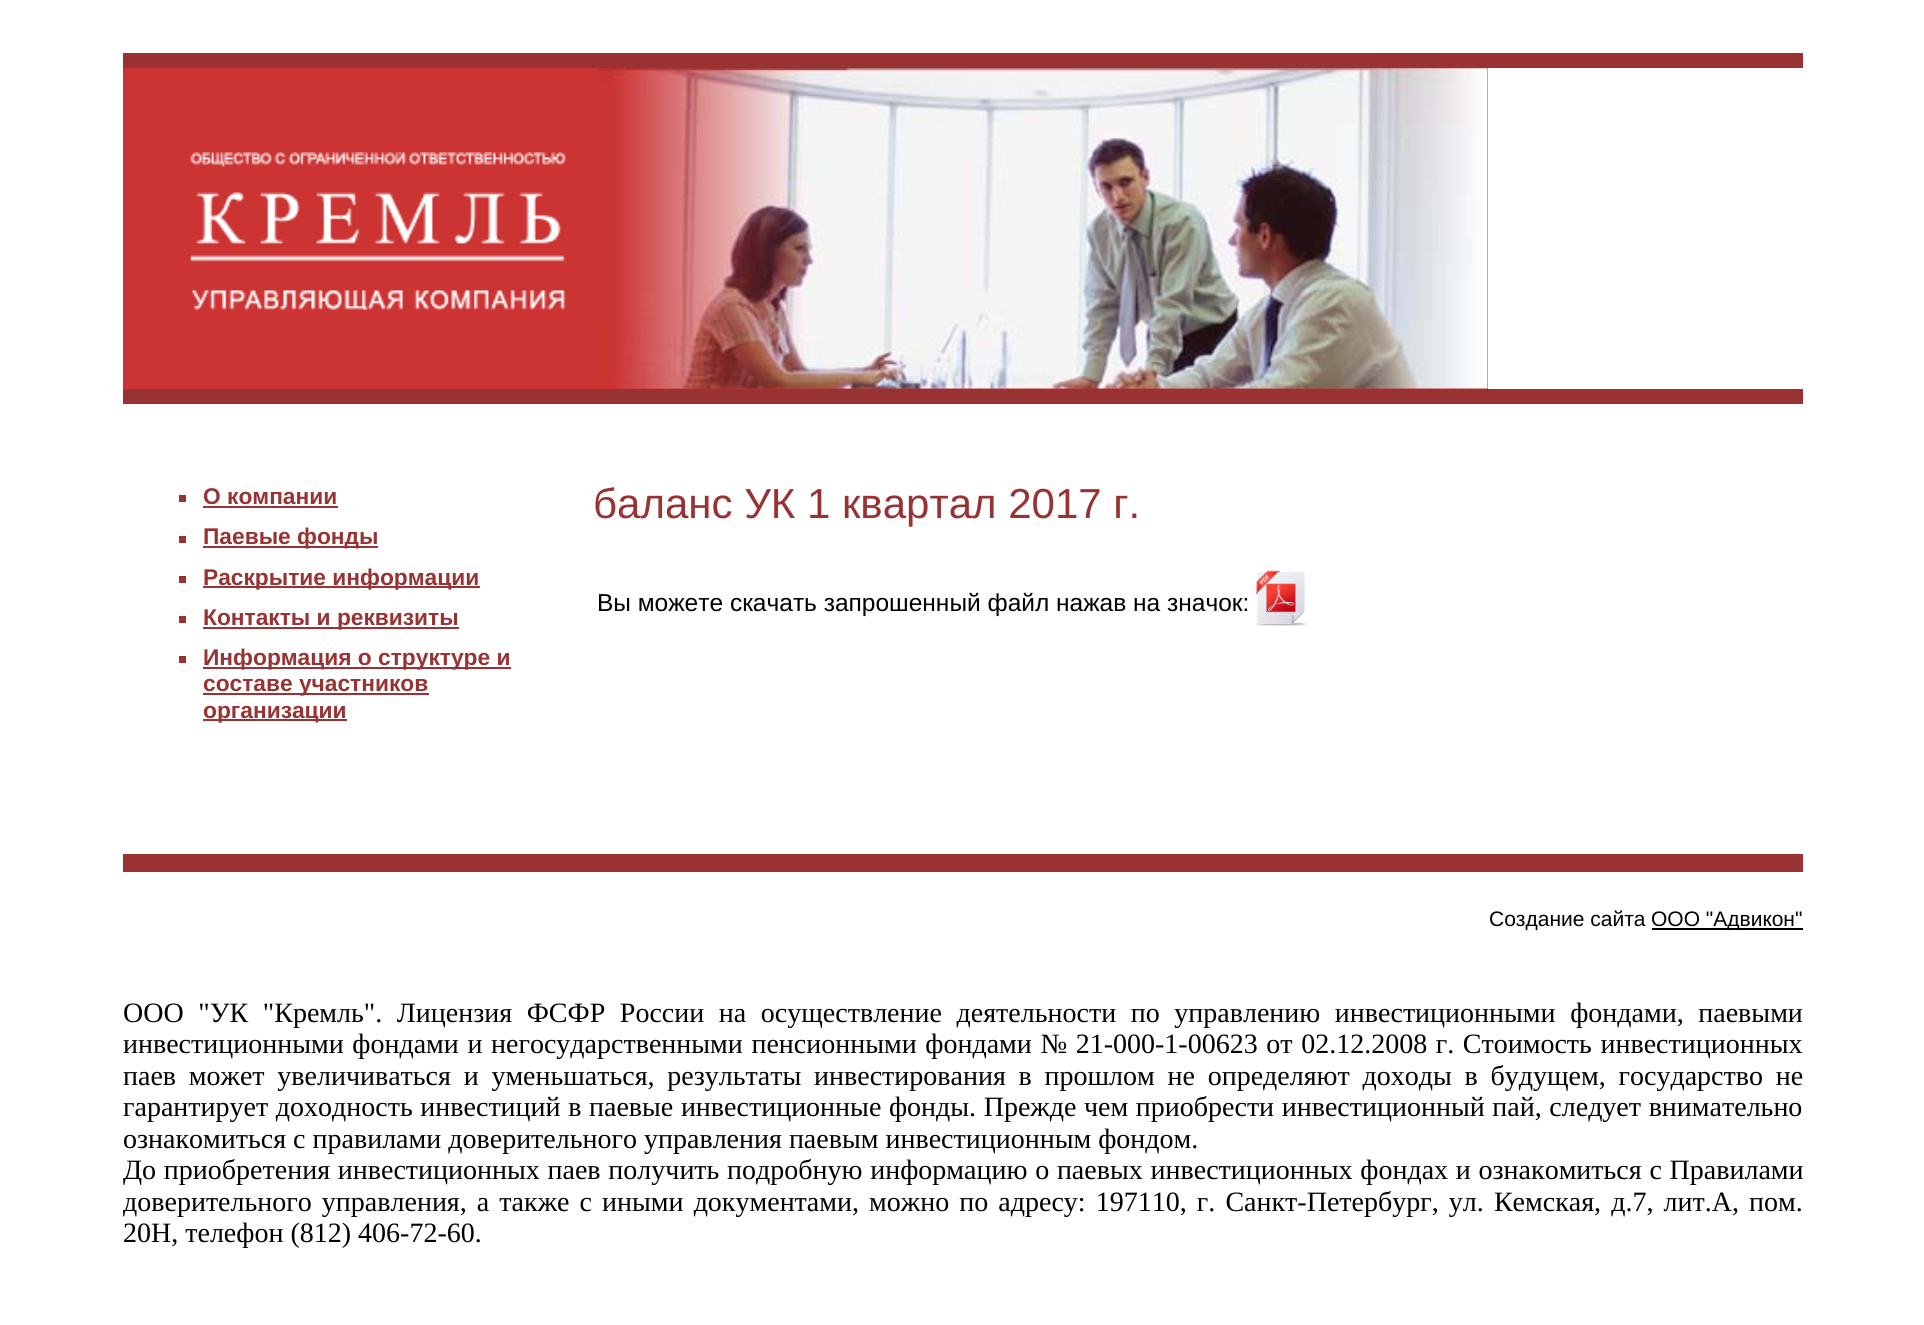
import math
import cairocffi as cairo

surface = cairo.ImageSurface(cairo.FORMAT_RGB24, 1924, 1325)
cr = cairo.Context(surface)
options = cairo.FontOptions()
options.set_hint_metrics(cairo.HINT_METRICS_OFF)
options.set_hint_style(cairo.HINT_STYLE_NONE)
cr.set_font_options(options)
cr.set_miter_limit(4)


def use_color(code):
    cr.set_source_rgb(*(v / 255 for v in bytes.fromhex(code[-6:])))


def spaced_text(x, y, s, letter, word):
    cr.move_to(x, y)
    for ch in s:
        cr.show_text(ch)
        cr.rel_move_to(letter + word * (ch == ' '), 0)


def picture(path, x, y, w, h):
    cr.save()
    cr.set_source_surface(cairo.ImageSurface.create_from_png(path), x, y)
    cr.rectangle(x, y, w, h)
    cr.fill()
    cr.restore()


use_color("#ffffff")
cr.paint()
use_color("#993333")
cr.rectangle(123, 53, 1680, 15)
cr.fill()
cr.rectangle(123, 389, 1680, 15)
cr.fill()
use_color("#cc3333")
cr.rectangle(123, 68, 1365, 321)
cr.fill()
picture("img1.png", 598, 68, 890, 321)
picture("img2.png", 190, 152, 376, 158)
use_color("#993333")
cr.rectangle(179, 495, 7, 7)
cr.fill()
cr.select_font_face("Liberation Sans", cairo.FONT_SLANT_NORMAL, cairo.FONT_WEIGHT_BOLD)
cr.set_font_size(22.75)
cr.move_to(203, 504)
cr.show_text("О компании")
cr.rectangle(203, 506, 135, 2)
cr.fill()
cr.rectangle(179, 536, 7, 7)
cr.fill()
cr.rectangle(203, 546, 175, 2)
cr.fill()
cr.move_to(203, 544)
cr.show_text("Паевые фонды")
cr.rectangle(179, 576, 7, 7)
cr.fill()
cr.rectangle(203, 586, 277, 2)
cr.fill()
cr.move_to(203, 585)
cr.show_text("Раскрытие информации")
cr.rectangle(179, 616, 7, 7)
cr.fill()
cr.rectangle(203, 627, 256, 2)
cr.fill()
cr.move_to(203, 625)
cr.show_text("Контакты и реквизиты")
cr.rectangle(179, 656, 7, 7)
cr.fill()
cr.rectangle(203, 667, 308, 2)
cr.fill()
cr.move_to(203, 665)
cr.show_text("Информация о структуре и")
cr.rectangle(203, 693, 226, 2)
cr.fill()
cr.move_to(203, 691)
cr.show_text("составе участников")
cr.rectangle(203, 719, 144, 2)
cr.fill()
cr.move_to(203, 718)
cr.show_text("организации")
cr.select_font_face("Liberation Sans")
cr.set_font_size(42)
cr.move_to(593, 518)
cr.show_text("баланс УК 1 квартал 2017 г.")
cr.set_font_size(24.5)
use_color("#000000")
cr.move_to(597, 611)
cr.show_text("Вы можете скачать запрошенный файл нажав на значок:")
picture("img3.png", 1255, 570, 52, 56)
use_color("#993333")
cr.rectangle(123, 854, 1680, 18)
cr.fill()
cr.set_font_size(21)
use_color("#000000")
cr.move_to(1489, 926)
cr.show_text("Создание сайта")
cr.rectangle(1652, 928, 151, 2)
cr.fill()
cr.move_to(1651, 926)
cr.show_text("ООО \"Адвикон\"")
cr.select_font_face("Liberation Serif")
cr.set_font_size(28)
spaced_text(123, 1022, "ООО \"УК \"Кремль\". Лицензия ФСФР России на осуществление деятельности по управлению инвестиционными фондами, паевыми", 0, 7.6)
spaced_text(123, 1053, "инвестиционными фондами и негосударственными пенсионными фондами № 21-000-1-00623 от 02.12.2008 г. Стоимость инвестиционных", 0, 1.6)
spaced_text(123, 1085, "паев может увеличиваться и уменьшаться, результаты инвестирования в прошлом не определяют доходы в будущем, государство не", 0, 5.75)
spaced_text(123, 1116, "гарантирует доходность инвестиций в паевые инвестиционные фонды. Прежде чем приобрести инвестиционный пай, следует внимательно", 0, 0.6)
cr.move_to(123, 1148)
cr.show_text("ознакомиться с правилами доверительного управления паевым инвестиционным фондом.")
spaced_text(123, 1179, "До приобретения инвестиционных паев получить подробную информацию о паевых инвестиционных фондах и ознакомиться с Правилами", 0, 0.75)
spaced_text(123, 1211, "доверительного управления, а также с иными документами, можно по адресу: 197110, г. Санкт-Петербург, ул. Кемская, д.7, лит.А, пом.", 0, 3.1)
cr.move_to(123, 1242)
cr.show_text("20Н, телефон (812) 406-72-60.")
surface.write_to_png("result.png")
